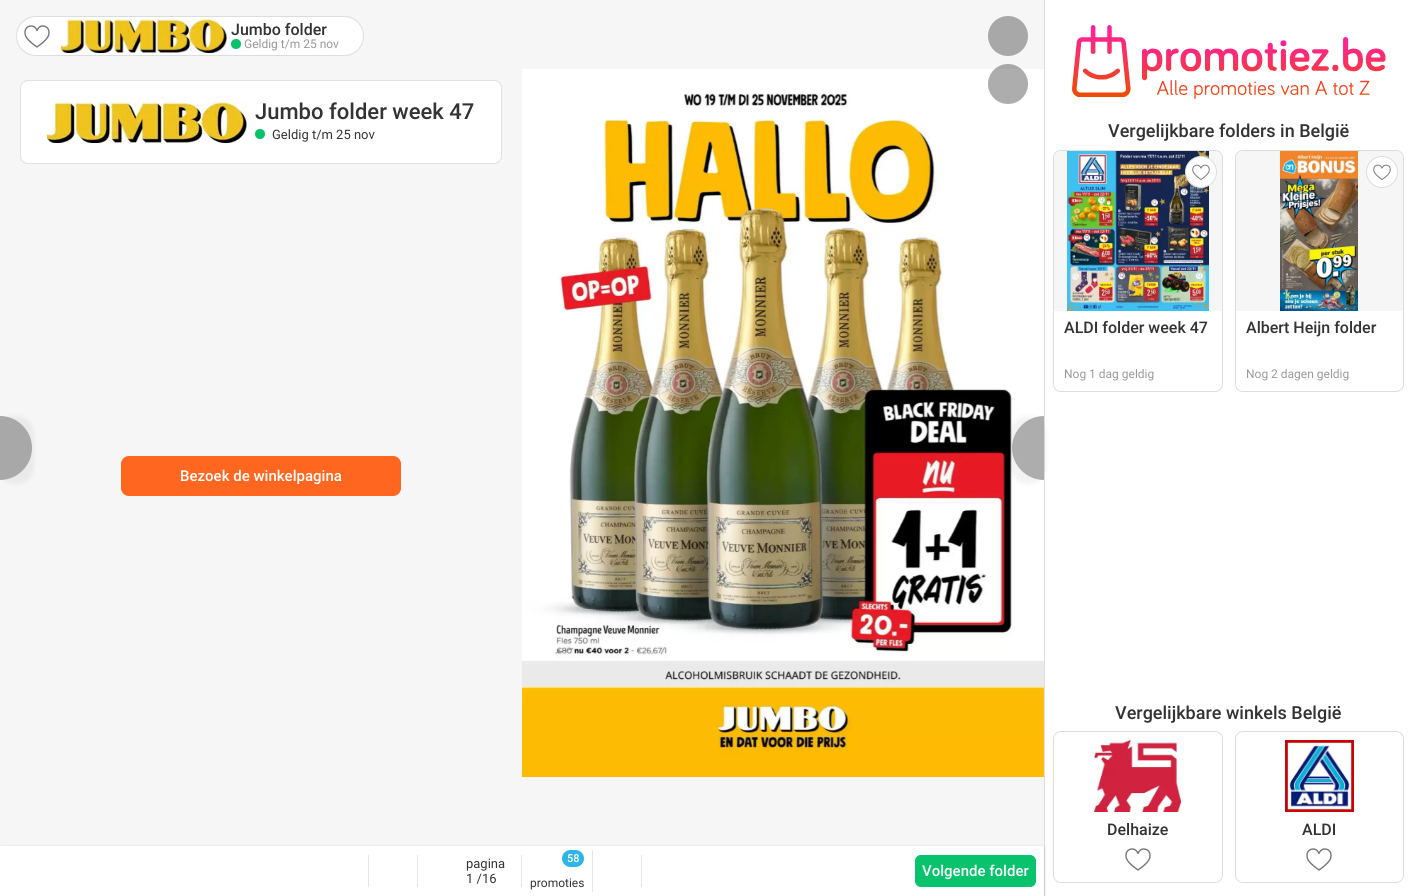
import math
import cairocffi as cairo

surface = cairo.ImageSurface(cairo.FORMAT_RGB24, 1427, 896)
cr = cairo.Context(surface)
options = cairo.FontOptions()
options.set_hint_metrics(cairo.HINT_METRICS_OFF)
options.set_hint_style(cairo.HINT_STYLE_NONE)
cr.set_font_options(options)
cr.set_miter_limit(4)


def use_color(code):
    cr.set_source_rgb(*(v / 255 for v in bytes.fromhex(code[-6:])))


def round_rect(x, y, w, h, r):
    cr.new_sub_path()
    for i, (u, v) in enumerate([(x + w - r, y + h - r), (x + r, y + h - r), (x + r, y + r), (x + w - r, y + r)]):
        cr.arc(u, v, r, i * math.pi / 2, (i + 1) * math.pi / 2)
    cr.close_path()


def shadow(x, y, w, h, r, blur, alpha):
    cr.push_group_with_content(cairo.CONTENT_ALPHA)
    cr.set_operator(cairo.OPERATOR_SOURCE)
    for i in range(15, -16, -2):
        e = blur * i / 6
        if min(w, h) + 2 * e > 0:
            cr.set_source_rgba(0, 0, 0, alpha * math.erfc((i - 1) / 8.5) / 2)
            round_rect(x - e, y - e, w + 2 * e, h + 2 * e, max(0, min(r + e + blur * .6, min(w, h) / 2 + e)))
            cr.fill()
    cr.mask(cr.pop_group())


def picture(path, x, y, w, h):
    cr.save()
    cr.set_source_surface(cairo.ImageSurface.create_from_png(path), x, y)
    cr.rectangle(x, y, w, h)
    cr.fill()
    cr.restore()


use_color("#ffffff")
cr.paint()
use_color("#f6f6f6")
cr.rectangle(0, 0, 1044, 846)
cr.fill()
use_color("#ffffff")
round_rect(16.5, 16.5, 347, 39, 19.5)
cr.fill_preserve()
use_color("#dddddd")
cr.set_line_width(1)
cr.stroke()
picture("img1.png", 24, 25, 26, 23)
picture("img2.png", 61, 19, 166, 34)
cr.select_font_face("Roboto Medium")
cr.set_font_size(16)
use_color("#333333")
cr.move_to(231, 35)
cr.show_text("Jumbo folder")
use_color("#08c36c")
cr.new_path()
cr.arc(236, 44, 5, 0, 2 * math.pi)
cr.fill()
cr.select_font_face("Roboto")
cr.set_font_size(12)
use_color("#999999")
cr.move_to(244, 48)
cr.show_text("Geldig t/m 25 nov")
use_color("#a8a8a8")
cr.new_path()
cr.arc(1008, 36, 20, 0, 2 * math.pi)
cr.fill()
picture("img4.png", 522, 69, 522, 708)
cr.set_source_rgba(0.2, 0.2, 0.2, 0.4)
cr.arc(1008, 84, 20, 0, 2 * math.pi)
cr.fill()
cr.save()
cr.set_fill_rule(cairo.FILL_RULE_EVEN_ODD)
cr.new_path()
cr.move_to(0, 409)
cr.line_to(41, 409)
cr.line_to(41, 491)
cr.line_to(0, 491)
cr.close_path()
cr.move_to(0, 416)
cr.curve_to(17.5, 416, 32, 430.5, 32, 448)
cr.curve_to(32, 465.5, 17.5, 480, 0, 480)
cr.close_path()
cr.clip()
use_color("#000000")
shadow(-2, 416, 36, 68, 34, 2, 0.05)
cr.restore()
cr.new_path()
cr.move_to(0, 416)
cr.curve_to(17.5, 416, 32, 430.5, 32, 448)
cr.curve_to(32, 465.5, 17.5, 480, 0, 480)
cr.close_path()
cr.fill()
use_color("#ffffff")
round_rect(20, 80, 482, 84, 8)
cr.fill()
round_rect(20.5, 80.5, 481, 83, 7.5)
cr.set_source_rgba(0, 0, 0, 0.12)
cr.stroke()
picture("img3.png", 47, 102, 200, 41)
cr.select_font_face("Roboto Medium")
cr.set_font_size(22)
use_color("#333333")
cr.move_to(255, 119)
cr.show_text("Jumbo folder week 47")
use_color("#08c36c")
cr.new_path()
cr.arc(260, 134, 5, 0, 2 * math.pi)
cr.fill()
cr.select_font_face("Roboto")
cr.set_font_size(13)
use_color("#333333")
cr.move_to(272, 139)
cr.show_text("Geldig t/m 25 nov")
use_color("#ff661f")
round_rect(121.5, 456.5, 279, 39, 7.5)
cr.fill_preserve()
cr.stroke()
cr.select_font_face("Roboto Medium")
cr.set_font_size(15)
use_color("#ffffff")
cr.move_to(180, 481)
cr.show_text("Bezoek de winkelpagina")
use_color("#dddddd")
cr.rectangle(1044, 0, 1, 896)
cr.fill()
cr.save()
cr.set_fill_rule(cairo.FILL_RULE_EVEN_ODD)
cr.new_path()
cr.move_to(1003, 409)
cr.line_to(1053, 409)
cr.line_to(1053, 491)
cr.line_to(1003, 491)
cr.close_path()
cr.move_to(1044, 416)
cr.line_to(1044, 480)
cr.curve_to(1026.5, 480, 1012, 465.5, 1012, 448)
cr.curve_to(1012, 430.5, 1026.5, 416, 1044, 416)
cr.close_path()
cr.clip()
use_color("#000000")
shadow(1010, 416, 36, 68, 34, 2, 0.05)
cr.restore()
cr.set_source_rgba(0.2, 0.2, 0.2, 0.4)
cr.new_path()
cr.move_to(1044, 416)
cr.line_to(1044, 480)
cr.curve_to(1026.5, 480, 1012, 465.5, 1012, 448)
cr.curve_to(1012, 430.5, 1026.5, 416, 1044, 416)
cr.close_path()
cr.fill()
use_color("#000000")
shadow(1, 846, 1044, 50, 0, 1, 0.1)
use_color("#ffffff")
cr.rectangle(0, 846, 1044, 50)
cr.fill()
use_color("#e6e6e6")
cr.rectangle(368, 855, 1, 32)
cr.fill()
cr.rectangle(417, 855, 1, 32)
cr.fill()
cr.rectangle(521, 855, 1, 32)
cr.fill()
cr.select_font_face("Roboto")
cr.set_font_size(13)
use_color("#333333")
cr.move_to(466, 868)
cr.show_text("pagina")
cr.move_to(466, 883)
cr.show_text("1 /16")
use_color("#e6e6e6")
cr.rectangle(592, 850, 1, 42)
cr.fill()
use_color("#2cb5e6")
round_rect(562, 850, 22, 17, 8.5)
cr.fill()
cr.select_font_face("Roboto Medium")
cr.set_font_size(11)
use_color("#ffffff")
cr.move_to(567, 862)
cr.show_text("58")
cr.select_font_face("Roboto")
cr.set_font_size(12)
use_color("#333333")
cr.move_to(530, 887)
cr.show_text("promoties")
use_color("#e6e6e6")
cr.rectangle(641, 855, 1, 32)
cr.fill()
use_color("#08c36c")
round_rect(915.5, 855.5, 120, 31, 5.5)
cr.fill_preserve()
cr.stroke()
cr.select_font_face("Roboto Medium")
cr.set_font_size(15)
use_color("#ffffff")
cr.move_to(922, 876)
cr.show_text("Volgende folder")
picture("img5.png", 1072, 25, 314, 74)
cr.set_font_size(18)
use_color("#333333")
cr.move_to(1108, 137)
cr.show_text("Vergelijkbare folders in België")
round_rect(1053.5, 150.5, 169, 241, 7.5)
use_color("#dddddd")
cr.stroke()
use_color("#f6f6f6")
cr.new_path()
cr.move_to(1062, 151)
cr.line_to(1214, 151)
cr.curve_to(1218.5, 151, 1222, 154.5, 1222, 159)
cr.line_to(1222, 311)
cr.line_to(1054, 311)
cr.line_to(1054, 159)
cr.curve_to(1054, 154.5, 1057.5, 151, 1062, 151)
cr.close_path()
cr.fill()
picture("img6.png", 1067, 151, 142, 160)
use_color("#ffffff")
cr.arc(1201, 172, 15.5, 0, 2 * math.pi)
cr.fill_preserve()
use_color("#dddddd")
cr.stroke()
picture("img7.png", 1192, 164, 18, 16)
use_color("#ffffff")
cr.new_path()
cr.move_to(1054, 311)
cr.line_to(1222, 311)
cr.line_to(1222, 383)
cr.curve_to(1222, 387.5, 1218.5, 391, 1214, 391)
cr.line_to(1062, 391)
cr.curve_to(1057.5, 391, 1054, 387.5, 1054, 383)
cr.close_path()
cr.fill()
cr.set_font_size(16)
use_color("#333333")
cr.move_to(1064, 333)
cr.show_text("ALDI folder week 47")
cr.select_font_face("Roboto")
cr.set_font_size(12)
use_color("#999999")
cr.move_to(1064, 378)
cr.show_text("Nog 1 dag geldig")
round_rect(1235.5, 150.5, 168, 241, 7.5)
use_color("#dddddd")
cr.stroke()
use_color("#f6f6f6")
cr.new_path()
cr.move_to(1244, 151)
cr.line_to(1395, 151)
cr.curve_to(1399.5, 151, 1403, 154.5, 1403, 159)
cr.line_to(1403, 311)
cr.line_to(1236, 311)
cr.line_to(1236, 159)
cr.curve_to(1236, 154.5, 1239.5, 151, 1244, 151)
cr.close_path()
cr.fill()
picture("img8.png", 1280, 151, 78, 160)
use_color("#ffffff")
cr.arc(1382, 172, 15.5, 0, 2 * math.pi)
cr.fill_preserve()
use_color("#dddddd")
cr.stroke()
picture("img7.png", 1373, 164, 18, 16)
use_color("#ffffff")
cr.new_path()
cr.move_to(1236, 311)
cr.line_to(1403, 311)
cr.line_to(1403, 383)
cr.curve_to(1403, 387.5, 1399.5, 391, 1395, 391)
cr.line_to(1244, 391)
cr.curve_to(1239.5, 391, 1236, 387.5, 1236, 383)
cr.close_path()
cr.fill()
cr.select_font_face("Roboto Medium")
cr.set_font_size(16)
use_color("#333333")
cr.move_to(1246, 333)
cr.show_text("Albert Heijn folder")
cr.select_font_face("Roboto")
cr.set_font_size(12)
use_color("#999999")
cr.move_to(1246, 378)
cr.show_text("Nog 2 dagen geldig")
cr.select_font_face("Roboto Medium")
cr.set_font_size(18)
use_color("#333333")
cr.move_to(1115, 719)
cr.show_text("Vergelijkbare winkels België")
round_rect(1053.5, 731.5, 169, 151, 7.5)
use_color("#dddddd")
cr.stroke()
use_color("#ffffff")
round_rect(1054, 732, 168, 150, 8)
cr.fill()
picture("img9.png", 1094, 740, 87, 72)
cr.set_font_size(16)
use_color("#333333")
cr.move_to(1107, 835)
cr.show_text("Delhaize")
picture("img1.png", 1125, 848, 26, 23)
round_rect(1235.5, 731.5, 168, 151, 7.5)
use_color("#dddddd")
cr.stroke()
use_color("#ffffff")
round_rect(1236, 732, 167, 150, 8)
cr.fill()
picture("img10.png", 1285, 740, 69, 72)
use_color("#333333")
cr.move_to(1302, 835)
cr.show_text("ALDI")
picture("img1.png", 1306, 848, 26, 23)
surface.write_to_png("result.png")
